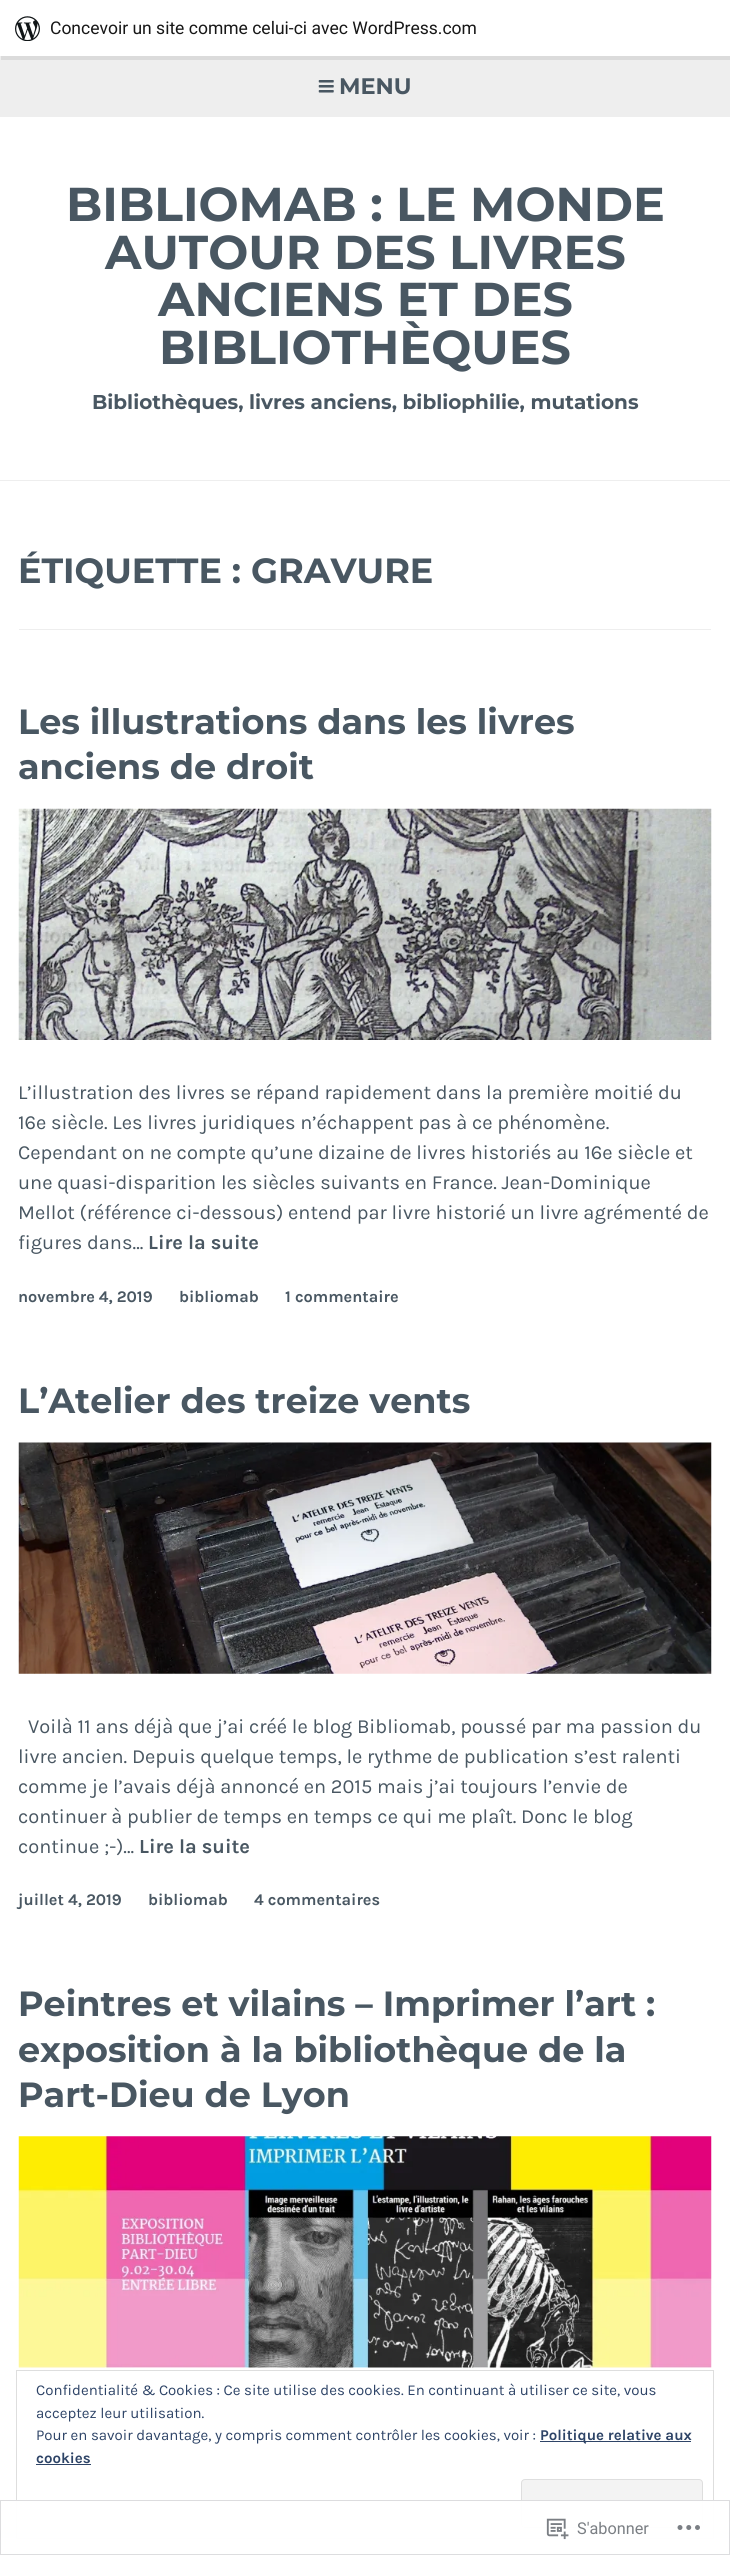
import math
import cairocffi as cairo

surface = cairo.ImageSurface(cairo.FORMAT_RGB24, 730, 2555)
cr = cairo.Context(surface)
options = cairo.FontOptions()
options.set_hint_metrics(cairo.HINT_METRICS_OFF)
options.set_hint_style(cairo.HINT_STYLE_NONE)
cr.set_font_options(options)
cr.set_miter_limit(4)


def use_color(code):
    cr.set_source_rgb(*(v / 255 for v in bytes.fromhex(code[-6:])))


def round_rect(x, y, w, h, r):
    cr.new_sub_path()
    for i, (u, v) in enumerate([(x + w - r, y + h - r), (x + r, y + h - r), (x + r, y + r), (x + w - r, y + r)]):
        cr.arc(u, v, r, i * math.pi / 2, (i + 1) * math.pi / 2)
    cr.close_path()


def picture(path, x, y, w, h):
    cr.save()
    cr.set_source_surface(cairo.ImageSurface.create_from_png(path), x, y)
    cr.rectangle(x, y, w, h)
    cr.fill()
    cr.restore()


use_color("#ffffff")
cr.paint()
use_color("#eeeeee")
cr.rectangle(0, 56, 730, 61)
cr.fill()
cr.set_source_rgba(0, 0, 0, 0.08)
cr.new_path()
cr.move_to(1, 56)
cr.line_to(1, 60)
cr.line_to(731, 60)
cr.line_to(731, 4)
cr.line_to(730, 4)
cr.line_to(730, 56)
cr.close_path()
cr.fill()
picture("img1.png", 15, 16, 25, 25)
cr.select_font_face("Roboto")
cr.set_font_size(17.5)
use_color("#171717")
cr.move_to(50, 34)
cr.show_text("Concevoir un site comme celui-ci avec WordPress.com")
picture("img2.png", 318, 80, 16, 13)
cr.select_font_face("Montserrat", cairo.FONT_SLANT_NORMAL, cairo.FONT_WEIGHT_BOLD)
cr.set_font_size(22.5)
use_color("#495762")
cr.move_to(339, 94)
cr.show_text("MENU")
cr.set_font_size(47.5)
cr.move_to(66, 221)
cr.show_text("BIBLIOMAB : LE MONDE")
cr.move_to(105, 269)
cr.show_text("AUTOUR DES LIVRES")
cr.move_to(158, 316)
cr.show_text("ANCIENS ET DES")
cr.move_to(159, 364)
cr.show_text("BIBLIOTHÈQUES")
cr.set_font_size(20)
cr.move_to(92, 409)
cr.show_text("Bibliothèques, livres anciens, bibliophilie, mutations")
use_color("#eeeeee")
cr.rectangle(0, 480, 730, 1)
cr.fill()
cr.rectangle(19, 629, 692, 1)
cr.fill()
cr.set_font_size(35)
use_color("#495762")
cr.move_to(18, 583)
cr.show_text("ÉTIQUETTE : GRAVURE")
cr.move_to(18, 734)
cr.show_text("Les illustrations dans les livres")
cr.move_to(18, 779)
cr.show_text("anciens de droit")
picture("img3.png", 18, 808, 694, 232)
cr.select_font_face("Karla")
cr.set_font_size(20)
cr.move_to(18, 1099)
cr.show_text("L’illustration des livres se répand rapidement dans la première moitié du")
cr.move_to(18, 1129)
cr.show_text("16e siècle. Les livres juridiques n’échappent pas à ce phénomène.")
cr.move_to(18, 1159)
cr.show_text("Cependant on ne compte qu’une dizaine de livres historiés au 16e siècle et")
cr.move_to(18, 1189)
cr.show_text("une quasi-disparition les siècles suivants en France. Jean-Dominique")
cr.move_to(18, 1219)
cr.show_text("Mellot (référence ci-dessous) entend par livre historié un livre agrémenté de")
cr.move_to(18, 1249)
cr.show_text("figures dans…")
cr.select_font_face("Karla", cairo.FONT_SLANT_NORMAL, cairo.FONT_WEIGHT_BOLD)
cr.move_to(148, 1249)
cr.show_text("Lire la suite")
cr.set_font_size(16.25)
cr.move_to(18, 1302)
cr.show_text("novembre 4, 2019")
cr.move_to(179, 1302)
cr.show_text("bibliomab")
cr.move_to(285, 1302)
cr.show_text("1 commentaire")
cr.select_font_face("Montserrat", cairo.FONT_SLANT_NORMAL, cairo.FONT_WEIGHT_BOLD)
cr.set_font_size(35)
cr.move_to(18, 1413)
cr.show_text("L’Atelier des treize vents")
picture("img4.png", 18, 1442, 694, 232)
cr.select_font_face("Karla")
cr.set_font_size(20)
cr.move_to(28, 1733)
cr.show_text("Voilà 11 ans déjà que j’ai créé le blog Bibliomab, poussé par ma passion du")
cr.move_to(18, 1763)
cr.show_text("livre ancien. Depuis quelque temps, le rythme de publication s’est ralenti")
cr.move_to(18, 1793)
cr.show_text("comme je l’avais déjà annoncé en 2015 mais j’ai toujours l’envie de")
cr.move_to(18, 1823)
cr.show_text("continuer à publier de temps en temps ce qui me plaît. Donc le blog")
cr.move_to(18, 1853)
cr.show_text("continue ;-)…")
cr.select_font_face("Karla", cairo.FONT_SLANT_NORMAL, cairo.FONT_WEIGHT_BOLD)
cr.move_to(139, 1853)
cr.show_text("Lire la suite")
cr.set_font_size(16.25)
cr.move_to(18, 1905)
cr.show_text("juillet 4, 2019")
cr.move_to(148, 1905)
cr.show_text("bibliomab")
cr.move_to(254, 1905)
cr.show_text("4 commentaires")
cr.select_font_face("Montserrat", cairo.FONT_SLANT_NORMAL, cairo.FONT_WEIGHT_BOLD)
cr.set_font_size(35)
cr.move_to(18, 2016)
cr.show_text("Peintres et vilains – Imprimer l’art :")
cr.move_to(18, 2062)
cr.show_text("exposition à la bibliothèque de la")
cr.move_to(18, 2107)
cr.show_text("Part-Dieu de Lyon")
picture("img5.png", 18, 2136, 694, 232)
cr.rectangle(16.5, 2370.5, 697, 168)
use_color("#dedede")
cr.set_line_width(1)
cr.stroke()
cr.select_font_face("Karla")
cr.set_font_size(15)
use_color("#2e4467")
cr.move_to(36, 2395)
cr.show_text("Confidentialité & Cookies : Ce site utilise des cookies. En continuant à utiliser ce site, vous")
cr.move_to(36, 2418)
cr.show_text("acceptez leur utilisation.")
cr.move_to(36, 2440)
cr.show_text("Pour en savoir davantage, y compris comment contrôler les cookies, voir :")
cr.rectangle(540, 2441, 151, 1)
cr.fill()
cr.select_font_face("Karla", cairo.FONT_SLANT_NORMAL, cairo.FONT_WEIGHT_BOLD)
cr.move_to(540, 2440)
cr.show_text("Politique relative aux")
cr.move_to(36, 2463)
cr.show_text("cookies")
cr.rectangle(36, 2464, 55, 1)
cr.fill()
use_color("#f3f3f3")
round_rect(521.5, 2479.5, 181, 48, 3.5)
cr.fill_preserve()
use_color("#dedede")
cr.stroke()
cr.set_source_rgba(1, 1, 1, 0.98)
cr.rectangle(16, 2500, 698, 39)
cr.fill()
cr.rectangle(0.5, 2500.5, 729, 54)
cr.set_source_rgba(0.863, 0.863, 0.871, 0.98)
cr.stroke()
picture("img6.png", 546, 2518, 23, 22)
cr.select_font_face("Roboto")
cr.set_font_size(16.25)
use_color("#7b7f84")
cr.move_to(577, 2534)
cr.show_text("S'abonner")
picture("img7.png", 677, 2525, 23, 5)
surface.write_to_png("result.png")
